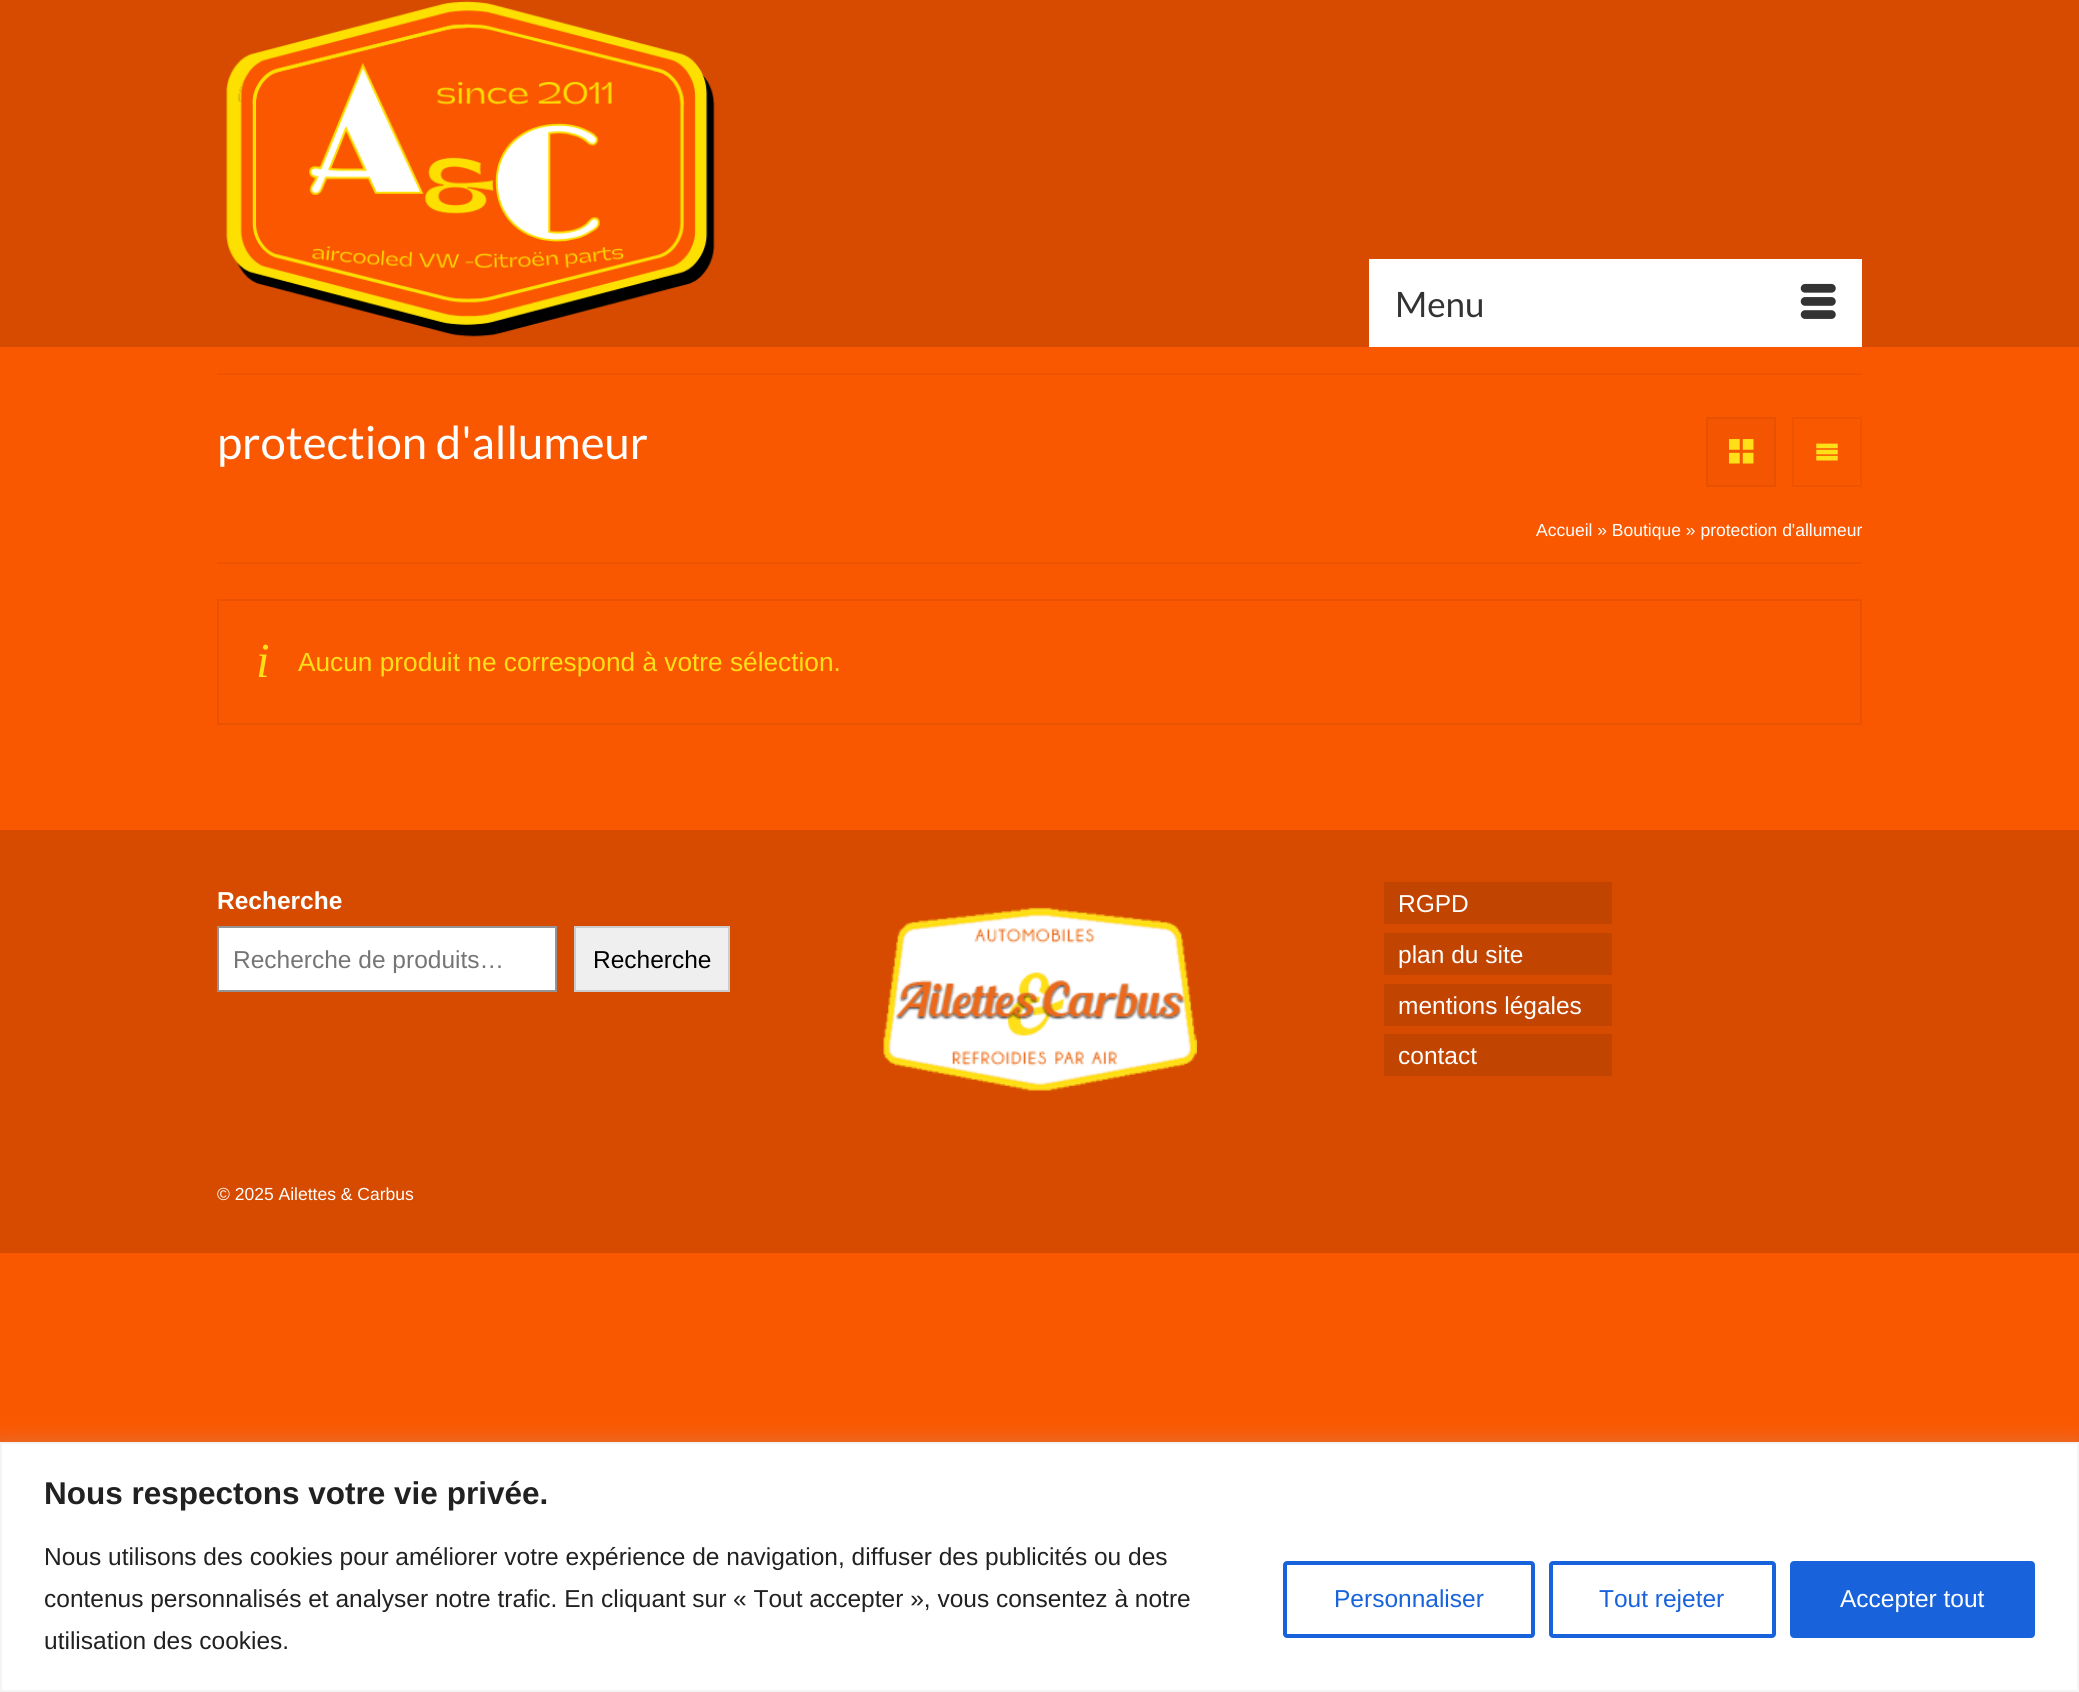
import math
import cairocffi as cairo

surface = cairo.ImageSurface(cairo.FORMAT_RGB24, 2079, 1692)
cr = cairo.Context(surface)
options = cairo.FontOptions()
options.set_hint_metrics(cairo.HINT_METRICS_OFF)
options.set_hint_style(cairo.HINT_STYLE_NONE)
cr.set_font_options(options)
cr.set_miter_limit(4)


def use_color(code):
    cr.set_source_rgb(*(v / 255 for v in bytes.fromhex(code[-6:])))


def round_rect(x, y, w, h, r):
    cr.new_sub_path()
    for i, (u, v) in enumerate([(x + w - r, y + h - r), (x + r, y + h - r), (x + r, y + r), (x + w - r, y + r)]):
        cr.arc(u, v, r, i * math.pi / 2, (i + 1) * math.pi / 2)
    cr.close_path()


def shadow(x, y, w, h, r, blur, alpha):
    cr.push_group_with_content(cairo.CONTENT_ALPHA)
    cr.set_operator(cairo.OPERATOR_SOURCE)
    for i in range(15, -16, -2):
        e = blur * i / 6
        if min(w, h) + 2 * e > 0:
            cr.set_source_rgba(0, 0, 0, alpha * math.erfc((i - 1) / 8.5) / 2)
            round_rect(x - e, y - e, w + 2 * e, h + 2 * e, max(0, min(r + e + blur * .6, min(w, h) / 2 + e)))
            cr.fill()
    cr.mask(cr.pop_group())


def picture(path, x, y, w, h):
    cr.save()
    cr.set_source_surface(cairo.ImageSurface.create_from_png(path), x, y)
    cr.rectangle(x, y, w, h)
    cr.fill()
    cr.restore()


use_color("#fa5800")
cr.paint()
use_color("#d64b00")
cr.rectangle(0, 0, 2079, 347)
cr.fill()
picture("img1.png", 226, 1, 489, 336)
use_color("#ffffff")
cr.rectangle(1369, 259, 493, 88)
cr.fill()
cr.select_font_face("Lato")
cr.set_font_size(35)
use_color("#333333")
cr.move_to(1395, 317)
cr.show_text("Menu")
picture("img2.png", 1800, 283, 36, 36)
use_color("#ee5400")
cr.rectangle(217, 373, 1645, 2)
cr.fill()
cr.rectangle(217, 562, 1645, 2)
cr.fill()
cr.set_font_size(45.5)
use_color("#ffffff")
cr.move_to(217, 459)
cr.show_text("protection d'allumeur")
use_color("#f35500")
cr.rectangle(1707, 418, 68, 68)
cr.fill_preserve()
use_color("#e75100")
cr.stroke()
picture("img3.png", 1729, 439, 25, 25)
cr.rectangle(1793, 418, 68, 68)
use_color("#ee5400")
cr.stroke()
picture("img4.png", 1816, 443, 22, 18)
cr.select_font_face("Liberation Sans")
cr.set_font_size(17.5)
use_color("#ffffff")
cr.move_to(1536, 536)
cr.show_text("Accueil » Boutique » protection d'allumeur")
cr.rectangle(218, 600, 1643, 124)
use_color("#e95200")
cr.stroke()
cr.select_font_face("Liberation Serif", cairo.FONT_SLANT_ITALIC)
cr.set_font_size(49)
use_color("#ffdf18")
cr.move_to(256, 677)
cr.show_text("i")
cr.select_font_face("Liberation Sans")
cr.set_font_size(26.25)
cr.move_to(298, 671)
cr.show_text("Aucun produit ne correspond à votre sélection.")
use_color("#d64b00")
cr.rectangle(0, 830, 2079, 423)
cr.fill()
cr.select_font_face("Liberation Sans", cairo.FONT_SLANT_NORMAL, cairo.FONT_WEIGHT_BOLD)
cr.set_font_size(24.5)
use_color("#ffffff")
cr.move_to(217, 909)
cr.show_text("Recherche")
cr.rectangle(218, 927, 338, 64)
cr.fill_preserve()
use_color("#949494")
cr.stroke()
cr.select_font_face("Liberation Sans")
use_color("#757575")
cr.move_to(233, 968)
cr.show_text("Recherche de produits…")
use_color("#efefef")
cr.rectangle(575, 927, 154, 64)
cr.fill_preserve()
use_color("#cccccc")
cr.stroke()
use_color("#000000")
cr.move_to(593, 968)
cr.show_text("Recherche")
picture("img5.png", 883, 907, 314, 184)
use_color("#c14400")
cr.rectangle(1384, 882, 228, 42)
cr.fill()
use_color("#ffffff")
cr.move_to(1398, 912)
cr.show_text("RGPD")
use_color("#c14400")
cr.rectangle(1384, 933, 228, 42)
cr.fill()
use_color("#ffffff")
cr.move_to(1398, 963)
cr.show_text("plan du site")
use_color("#c14400")
cr.rectangle(1384, 984, 228, 42)
cr.fill()
use_color("#ffffff")
cr.move_to(1398, 1014)
cr.show_text("mentions légales")
use_color("#c14400")
cr.rectangle(1384, 1034, 228, 42)
cr.fill()
use_color("#ffffff")
cr.move_to(1398, 1064)
cr.show_text("contact")
cr.set_font_size(17.5)
cr.move_to(217, 1200)
cr.show_text("© 2025 Ailettes & Carbus")
use_color("#acabab")
shadow(0, 1440, 2079, 251, 0, 9, 0.3)
use_color("#ffffff")
cr.rectangle(1, 1443, 2077, 248)
cr.fill_preserve()
use_color("#f4f4f4")
cr.stroke()
cr.select_font_face("Liberation Sans", cairo.FONT_SLANT_NORMAL, cairo.FONT_WEIGHT_BOLD)
cr.set_font_size(31.5)
use_color("#212121")
cr.move_to(44, 1504)
cr.show_text("Nous respectons votre vie privée.")
cr.select_font_face("Liberation Sans")
cr.set_font_size(24.5)
cr.move_to(44, 1565)
cr.show_text("Nous utilisons des cookies pour améliorer votre expérience de navigation, diffuser des publicités ou des")
cr.move_to(44, 1607)
cr.show_text("contenus personnalisés et analyser notre trafic. En cliquant sur « Tout accepter », vous consentez à notre")
cr.move_to(44, 1649)
cr.show_text("utilisation des cookies.")
round_rect(1285, 1563, 248, 73, 2)
use_color("#1863dc")
cr.set_line_width(4)
cr.stroke()
cr.move_to(1334, 1607)
cr.show_text("Personnaliser")
round_rect(1551, 1563, 223, 73, 2)
cr.stroke()
cr.move_to(1599, 1607)
cr.show_text("Tout rejeter")
round_rect(1792, 1563, 241, 73, 2)
cr.fill_preserve()
cr.stroke()
use_color("#ffffff")
cr.move_to(1840, 1607)
cr.show_text("Accepter tout")
surface.write_to_png("result.png")
